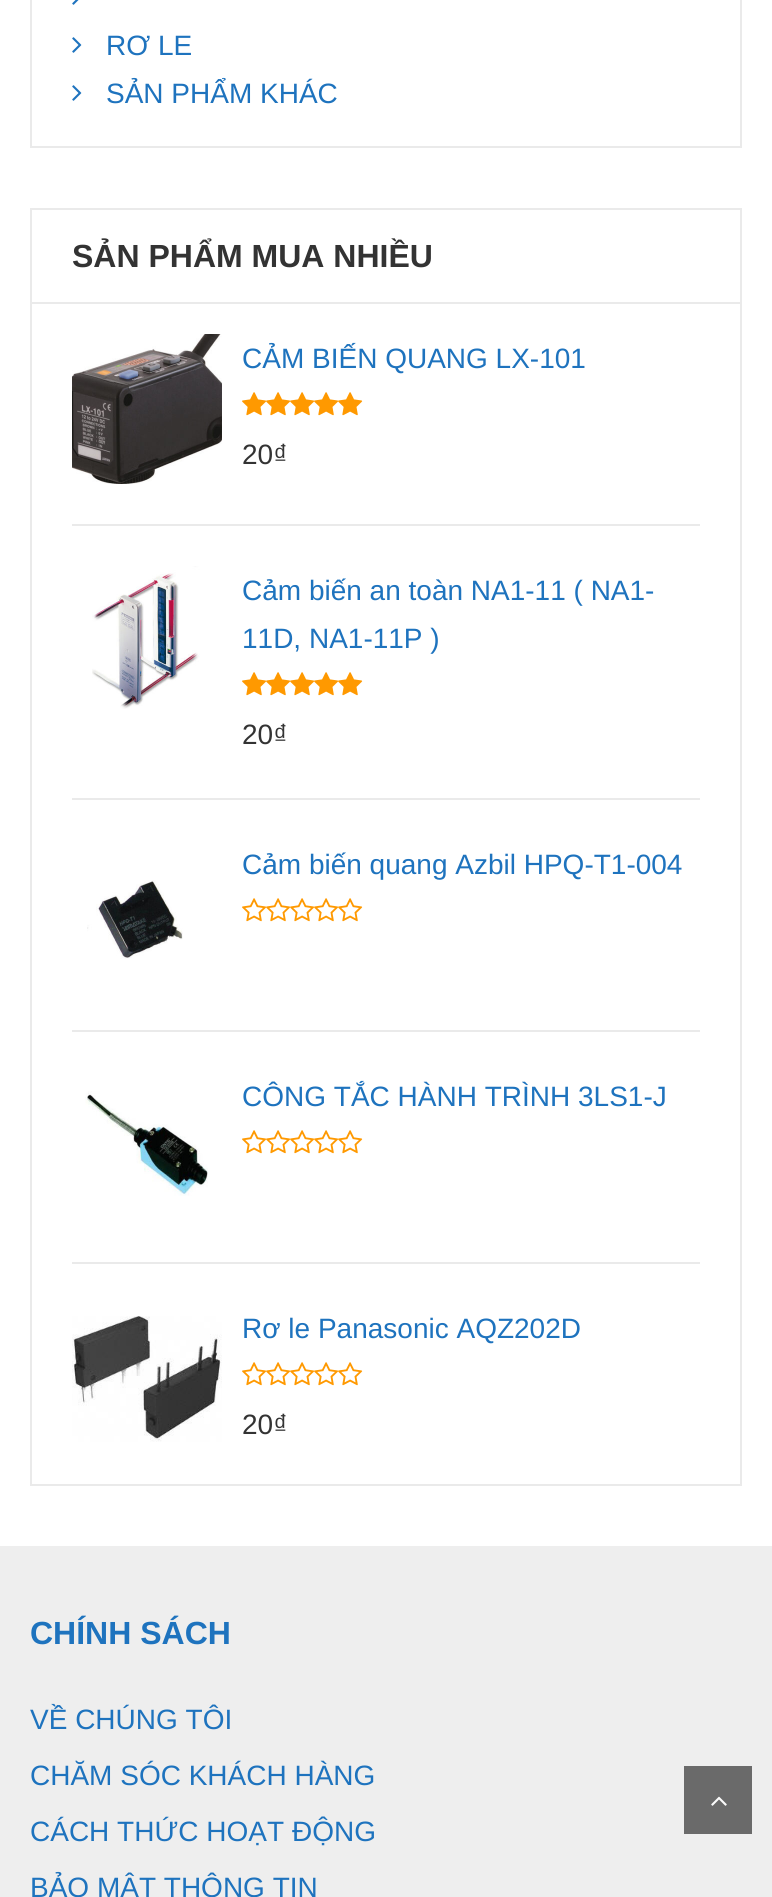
import math
import cairocffi as cairo

surface = cairo.ImageSurface(cairo.FORMAT_RGB24, 772, 1897)
cr = cairo.Context(surface)
options = cairo.FontOptions()
options.set_hint_metrics(cairo.HINT_METRICS_OFF)
options.set_hint_style(cairo.HINT_STYLE_NONE)
cr.set_font_options(options)
cr.set_miter_limit(4)


def use_color(code):
    cr.set_source_rgb(*(v / 255 for v in bytes.fromhex(code[-6:])))


def picture(path, x, y, w, h):
    cr.save()
    cr.set_source_surface(cairo.ImageSurface.create_from_png(path), x, y)
    cr.rectangle(x, y, w, h)
    cr.fill()
    cr.restore()


use_color("#ffffff")
cr.paint()
cr.rectangle(31, -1, 710, 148)
use_color("#eaeaea")
cr.stroke()
picture("img1.png", 72, 0, 7, 5)
picture("img2.png", 72, 37, 10, 16)
cr.select_font_face("Liberation Sans")
cr.set_font_size(28)
use_color("#1e73be")
cr.move_to(106, 55)
cr.show_text("RƠ LE")
picture("img2.png", 72, 85, 10, 16)
cr.move_to(106, 103)
cr.show_text("SẢN PHẨM KHÁC")
cr.rectangle(31, 209, 710, 1276)
use_color("#eaeaea")
cr.stroke()
cr.rectangle(32, 302, 708, 2)
cr.fill()
cr.select_font_face("Liberation Sans", cairo.FONT_SLANT_NORMAL, cairo.FONT_WEIGHT_BOLD)
cr.set_font_size(32)
use_color("#333333")
cr.move_to(72, 267)
cr.show_text("SẢN PHẨM MUA NHIỀU")
use_color("#eaeaea")
cr.rectangle(72, 524, 628, 2)
cr.fill()
picture("img3.png", 72, 334, 150, 150)
cr.select_font_face("Liberation Sans")
cr.set_font_size(28)
use_color("#1e73be")
cr.move_to(242, 368)
cr.show_text("CẢM BIẾN QUANG LX-101")
picture("img4.png", 242, 392, 25, 24)
picture("img5.png", 266, 392, 25, 24)
picture("img5.png", 290, 392, 25, 24)
picture("img5.png", 314, 392, 25, 24)
picture("img5.png", 338, 392, 25, 24)
use_color("#333333")
cr.move_to(242, 464)
cr.show_text("20₫")
use_color("#eaeaea")
cr.rectangle(72, 798, 628, 2)
cr.fill()
picture("img6.png", 92, 566, 108, 143)
use_color("#1e73be")
cr.move_to(242, 600)
cr.show_text("Cảm biến an toàn NA1-11 ( NA1-")
cr.move_to(242, 648)
cr.show_text("11D, NA1-11P )")
picture("img4.png", 242, 672, 25, 24)
picture("img5.png", 266, 672, 25, 24)
picture("img5.png", 290, 672, 25, 24)
picture("img5.png", 314, 672, 25, 24)
picture("img5.png", 338, 672, 25, 24)
use_color("#333333")
cr.move_to(242, 744)
cr.show_text("20₫")
use_color("#eaeaea")
cr.rectangle(72, 1030, 628, 2)
cr.fill()
use_color("#1e73be")
cr.move_to(242, 874)
cr.show_text("Cảm biến quang Azbil HPQ-T1-004")
picture("img7.png", 87, 880, 96, 79)
picture("img8.png", 242, 898, 25, 24)
picture("img9.png", 266, 898, 25, 24)
picture("img9.png", 290, 898, 25, 24)
picture("img9.png", 314, 898, 25, 24)
picture("img9.png", 338, 898, 25, 24)
use_color("#eaeaea")
cr.rectangle(72, 1262, 628, 2)
cr.fill()
picture("img10.png", 85, 1091, 123, 105)
use_color("#1e73be")
cr.move_to(242, 1106)
cr.show_text("CÔNG TẮC HÀNH TRÌNH 3LS1-J")
picture("img8.png", 242, 1130, 25, 24)
picture("img9.png", 266, 1130, 25, 24)
picture("img9.png", 290, 1130, 25, 24)
picture("img9.png", 314, 1130, 25, 24)
picture("img9.png", 338, 1130, 25, 24)
picture("img11.png", 72, 1316, 150, 126)
cr.move_to(242, 1338)
cr.show_text("Rơ le Panasonic AQZ202D")
picture("img8.png", 242, 1362, 25, 24)
picture("img9.png", 266, 1362, 25, 24)
picture("img9.png", 290, 1362, 25, 24)
picture("img9.png", 314, 1362, 25, 24)
picture("img9.png", 338, 1362, 25, 24)
use_color("#333333")
cr.move_to(242, 1434)
cr.show_text("20₫")
use_color("#eeeeee")
cr.rectangle(0, 1546, 772, 351)
cr.fill()
cr.select_font_face("Liberation Sans", cairo.FONT_SLANT_NORMAL, cairo.FONT_WEIGHT_BOLD)
cr.set_font_size(32)
use_color("#1e73be")
cr.move_to(30, 1644)
cr.show_text("CHÍNH SÁCH")
cr.select_font_face("Liberation Sans")
cr.set_font_size(28)
cr.move_to(30, 1729)
cr.show_text("VỀ CHÚNG TÔI")
cr.move_to(30, 1785)
cr.show_text("CHĂM SÓC KHÁCH HÀNG")
cr.move_to(30, 1841)
cr.show_text("CÁCH THỨC HOẠT ĐỘNG")
cr.move_to(30, 1897)
cr.show_text("BẢO MẬT THÔNG TIN")
use_color("#6a6a6a")
cr.rectangle(684, 1766, 68, 68)
cr.fill()
picture("img12.png", 711, 1796, 16, 10)
surface.write_to_png("result.png")
